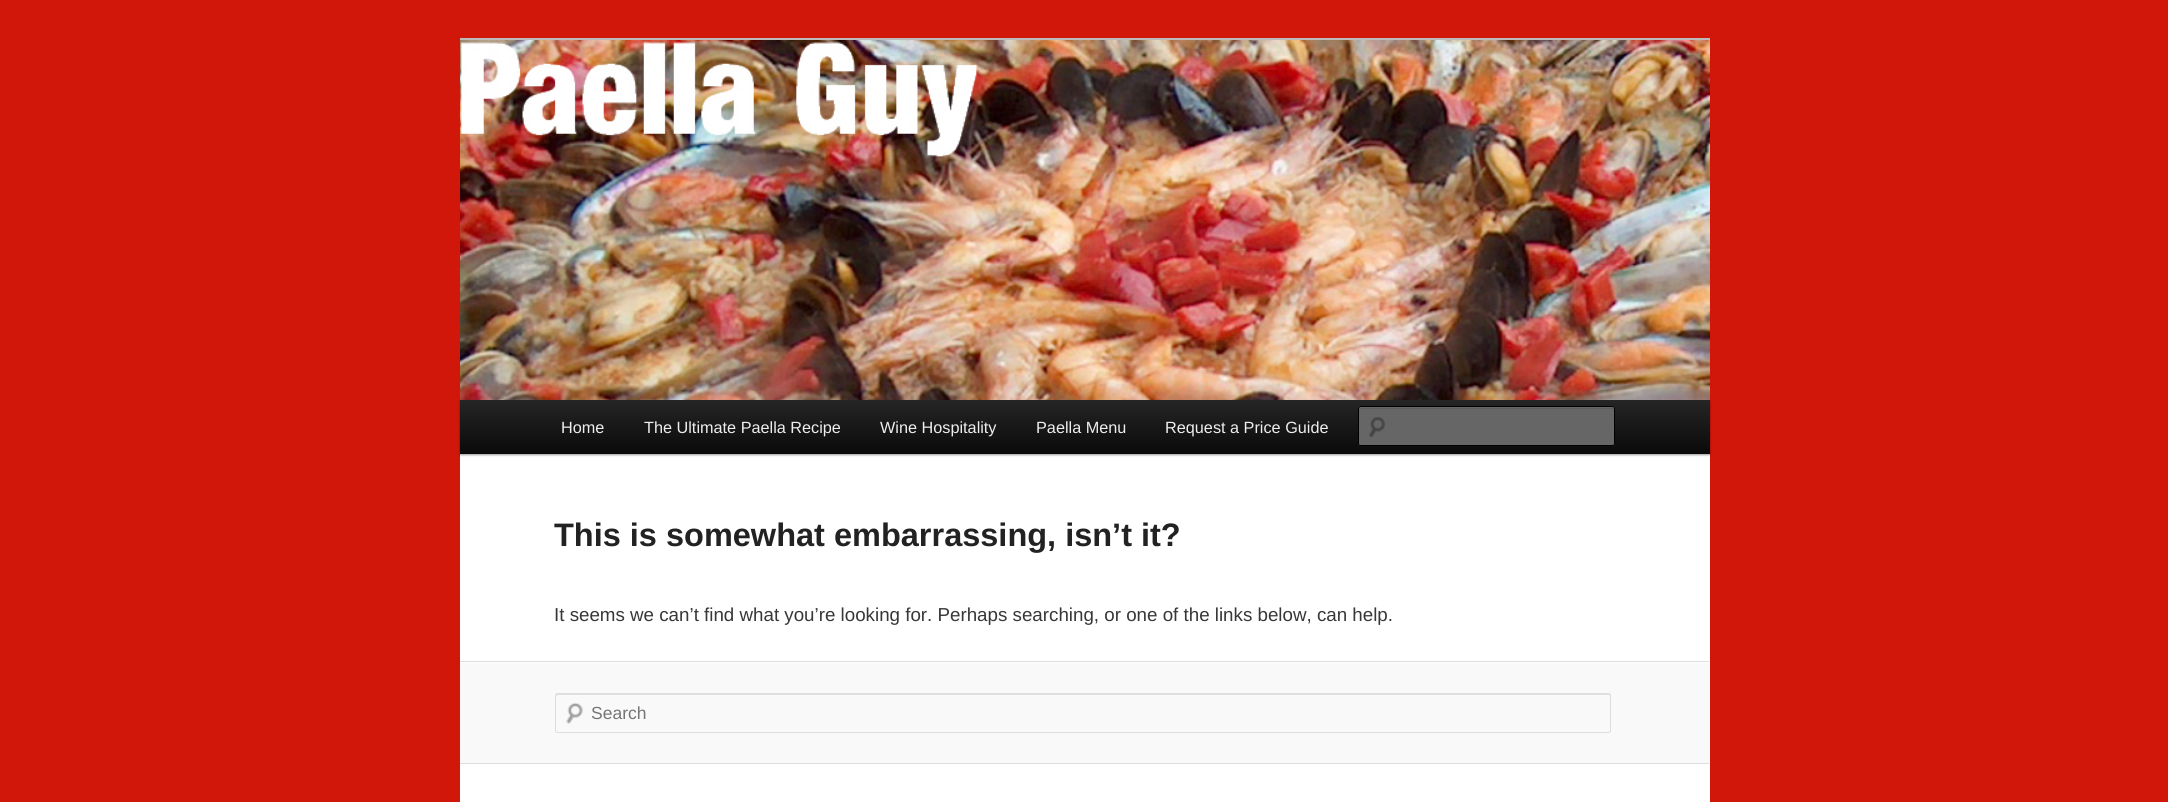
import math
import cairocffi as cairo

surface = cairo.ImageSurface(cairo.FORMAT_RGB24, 2168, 802)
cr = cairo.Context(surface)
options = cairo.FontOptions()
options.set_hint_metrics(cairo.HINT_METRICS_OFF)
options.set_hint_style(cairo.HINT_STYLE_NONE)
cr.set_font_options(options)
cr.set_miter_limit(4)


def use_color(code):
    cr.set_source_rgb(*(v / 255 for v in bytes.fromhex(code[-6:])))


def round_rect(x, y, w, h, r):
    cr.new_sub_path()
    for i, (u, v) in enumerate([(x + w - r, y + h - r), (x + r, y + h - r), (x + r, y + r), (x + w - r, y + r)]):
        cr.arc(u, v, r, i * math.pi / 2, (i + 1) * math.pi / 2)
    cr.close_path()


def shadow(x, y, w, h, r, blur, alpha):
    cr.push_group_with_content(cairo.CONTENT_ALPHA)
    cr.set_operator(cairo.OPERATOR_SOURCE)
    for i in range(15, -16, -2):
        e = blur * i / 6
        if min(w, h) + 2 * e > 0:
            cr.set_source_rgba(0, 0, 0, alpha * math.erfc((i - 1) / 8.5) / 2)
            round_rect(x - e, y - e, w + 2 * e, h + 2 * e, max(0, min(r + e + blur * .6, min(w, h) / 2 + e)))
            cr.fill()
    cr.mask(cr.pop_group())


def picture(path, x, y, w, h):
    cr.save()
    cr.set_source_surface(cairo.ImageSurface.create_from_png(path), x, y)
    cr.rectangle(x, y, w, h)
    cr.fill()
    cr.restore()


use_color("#d1170a")
cr.paint()
use_color("#ffffff")
cr.rectangle(460, 454, 1250, 348)
cr.fill()
use_color("#bbbbbb")
cr.rectangle(460, 38, 1250, 2)
cr.fill()
use_color("#000000")
shadow(460, 401, 1250, 54, 0, 1, 0.4)
picture("img1.png", 460, 40, 1250, 360)
gradient = cairo.LinearGradient(1085, 400, 1085, 454)
gradient.add_color_stop_rgba(0, 0.145, 0.145, 0.145, 1)
gradient.add_color_stop_rgba(1, 0.039, 0.039, 0.039, 1)
cr.set_source(gradient)
cr.rectangle(460, 400, 1250, 54)
cr.fill()
cr.select_font_face("Liberation Sans")
cr.set_font_size(16.25)
use_color("#eeeeee")
cr.move_to(561, 433)
cr.show_text("Home")
cr.move_to(644, 433)
cr.show_text("The Ultimate Paella Recipe")
cr.move_to(880, 433)
cr.show_text("Wine Hospitality")
cr.move_to(1036, 433)
cr.show_text("Paella Menu")
cr.move_to(1165, 433)
cr.show_text("Request a Price Guide")
use_color("#666666")
round_rect(1358, 406, 257, 40, 2.5)
cr.fill()
picture("img2.png", 1369, 417, 16, 21)
use_color("#5c5c5c")
cr.new_path()
cr.move_to(1360, 409)
cr.line_to(1612, 409)
cr.curve_to(1613, 409, 1614, 409, 1614, 410)
cr.line_to(1614, 408)
cr.line_to(1360, 408)
cr.curve_to(1359, 408, 1359, 409, 1359, 410)
cr.curve_to(1359, 409, 1359, 409, 1360, 409)
cr.close_path()
cr.fill()
round_rect(1358.5, 406.5, 256, 39, 2)
use_color("#000000")
cr.set_line_width(1)
cr.stroke()
cr.select_font_face("Liberation Sans", cairo.FONT_SLANT_NORMAL, cairo.FONT_WEIGHT_BOLD)
cr.set_font_size(32.5)
use_color("#222222")
cr.move_to(554, 546)
cr.show_text("This is somewhat embarrassing, isn’t it?")
cr.select_font_face("Liberation Sans")
cr.set_font_size(18.75)
use_color("#373737")
cr.move_to(554, 621)
cr.show_text("It seems we can’t find what you’re looking for. Perhaps searching, or one of the links below, can help.")
use_color("#f9f9f9")
cr.rectangle(460, 663, 1249, 100)
cr.fill()
use_color("#dddddd")
cr.rectangle(460, 661, 1249, 1)
cr.fill()
cr.rectangle(460, 763, 1249, 1)
cr.fill()
picture("img3.png", 566, 702, 17, 22)
use_color("#e0e0e0")
cr.new_path()
cr.move_to(558, 695)
cr.line_to(1609, 695)
cr.line_to(1610, 696)
cr.line_to(1610, 695)
cr.line_to(1609, 694)
cr.line_to(557, 694)
cr.curve_to(556, 694, 556, 695, 556, 696)
cr.close_path()
cr.fill()
round_rect(555.5, 693.5, 1055, 39, 2)
use_color("#dddddd")
cr.stroke()
cr.set_font_size(17.5)
use_color("#757575")
cr.move_to(591, 719)
cr.show_text("Search")
surface.write_to_png("result.png")
